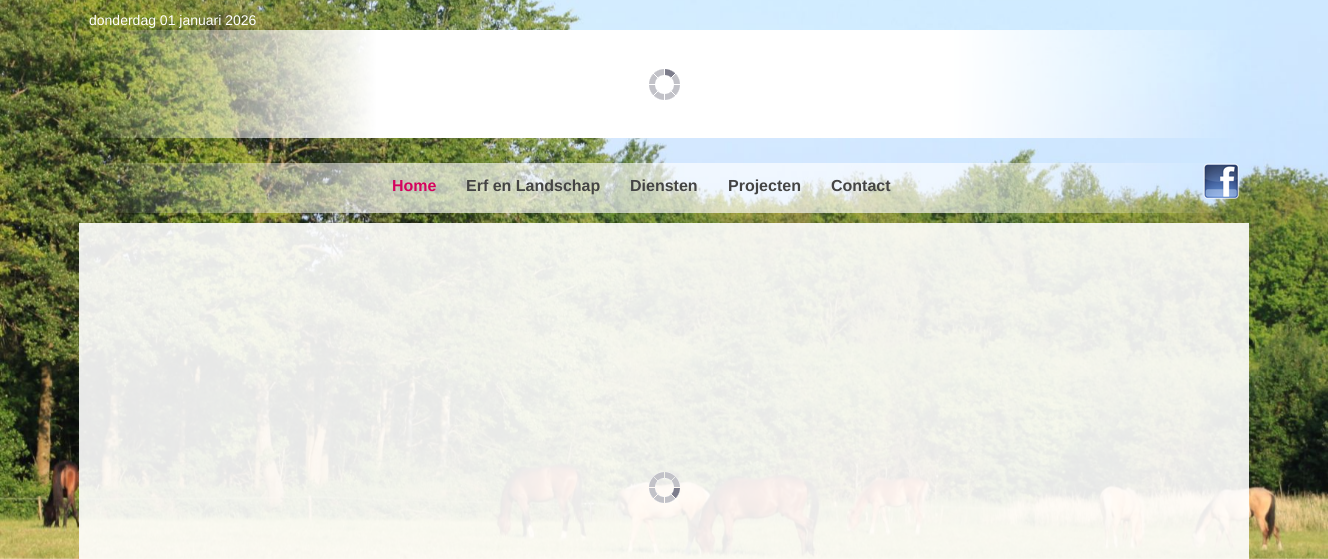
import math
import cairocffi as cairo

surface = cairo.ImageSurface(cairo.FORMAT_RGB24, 1328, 559)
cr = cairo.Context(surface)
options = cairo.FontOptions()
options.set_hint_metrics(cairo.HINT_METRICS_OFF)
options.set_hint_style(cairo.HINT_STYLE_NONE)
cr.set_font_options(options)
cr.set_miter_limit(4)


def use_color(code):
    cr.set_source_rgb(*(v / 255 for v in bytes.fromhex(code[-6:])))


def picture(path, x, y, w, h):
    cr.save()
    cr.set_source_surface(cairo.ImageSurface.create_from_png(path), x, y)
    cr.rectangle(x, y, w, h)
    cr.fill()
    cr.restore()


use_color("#ffffff")
cr.paint()
picture("img1.png", 0, 0, 1328, 559)
cr.select_font_face("Liberation Sans")
cr.set_font_size(14)
use_color("#ffffff")
cr.move_to(89, 25)
cr.show_text("donderdag 01 januari 2026")
picture("img2.png", 649, 69, 31, 31)
cr.select_font_face("Liberation Sans", cairo.FONT_SLANT_NORMAL, cairo.FONT_WEIGHT_BOLD)
cr.set_font_size(16)
use_color("#d4025e")
cr.move_to(392, 191)
cr.show_text("Home")
use_color("#444444")
cr.move_to(466, 191)
cr.show_text("Erf en Landschap")
cr.move_to(630, 191)
cr.show_text("Diensten")
cr.move_to(728, 191)
cr.show_text("Projecten")
cr.move_to(831, 191)
cr.show_text("Contact")
picture("img3.png", 1203, 163, 36, 36)
cr.set_source_rgba(1, 1, 1, 0.9)
cr.rectangle(79, 223, 1170, 336)
cr.fill()
picture("img4.png", 649, 472, 31, 31)
surface.write_to_png("result.png")
